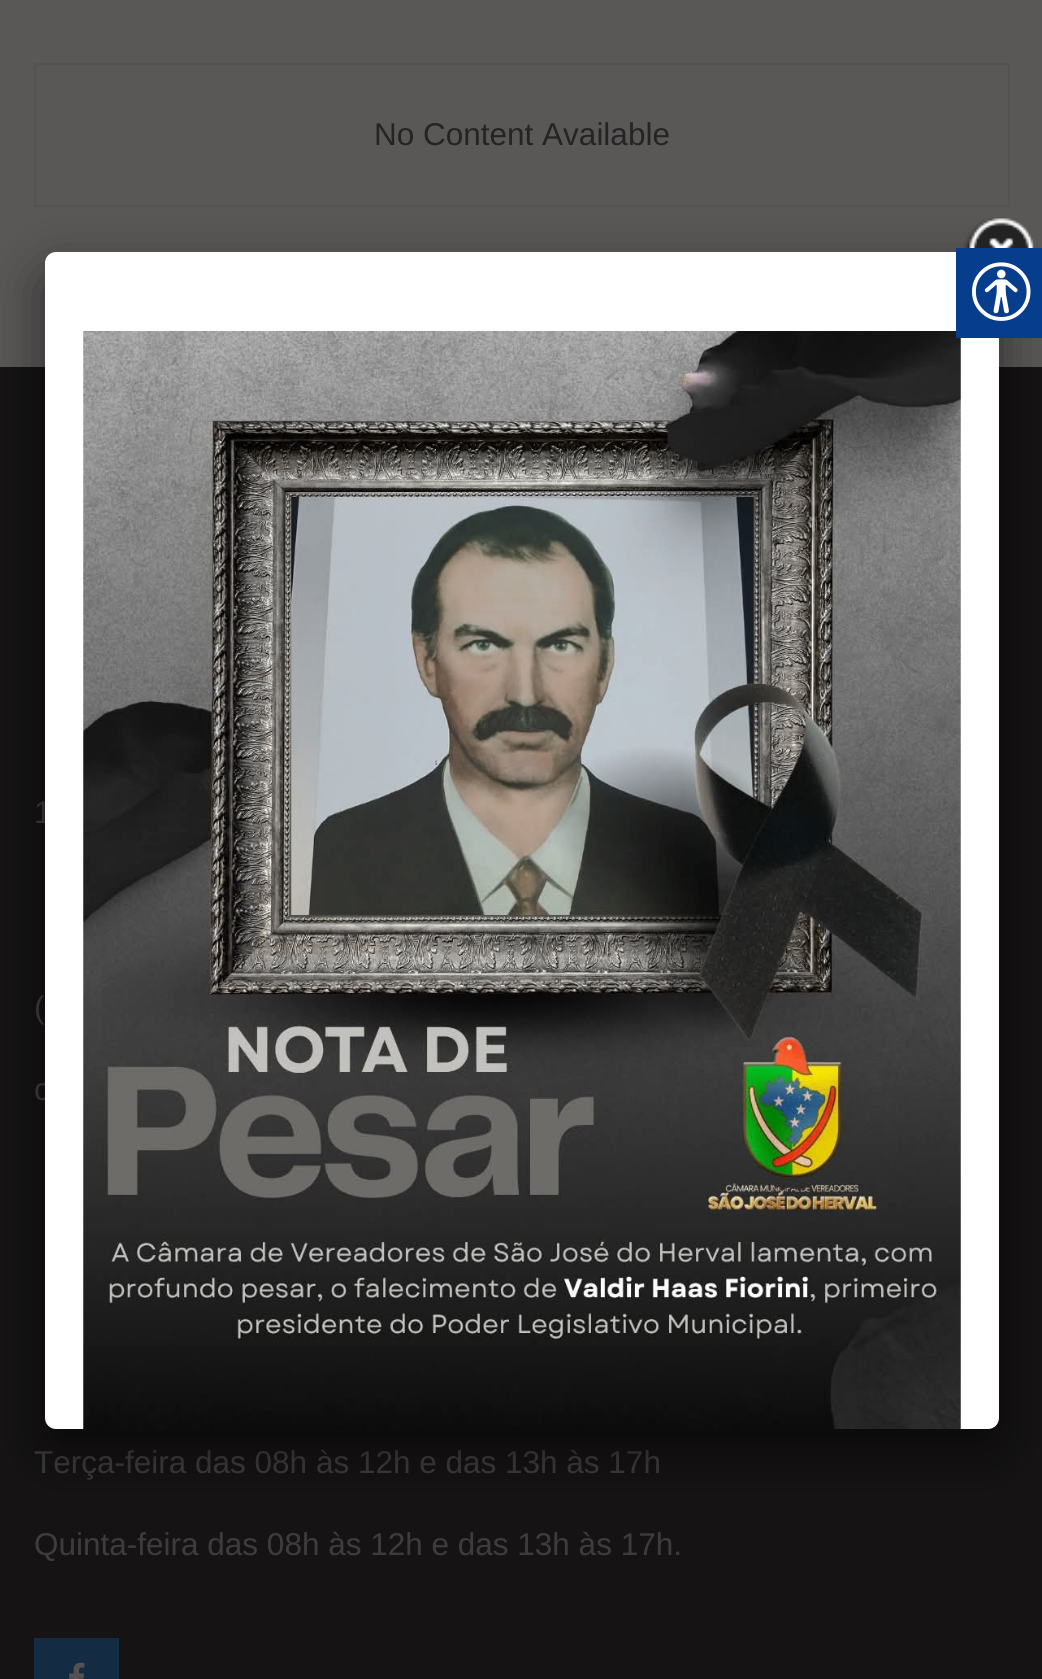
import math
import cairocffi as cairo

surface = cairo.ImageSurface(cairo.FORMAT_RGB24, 1042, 1679)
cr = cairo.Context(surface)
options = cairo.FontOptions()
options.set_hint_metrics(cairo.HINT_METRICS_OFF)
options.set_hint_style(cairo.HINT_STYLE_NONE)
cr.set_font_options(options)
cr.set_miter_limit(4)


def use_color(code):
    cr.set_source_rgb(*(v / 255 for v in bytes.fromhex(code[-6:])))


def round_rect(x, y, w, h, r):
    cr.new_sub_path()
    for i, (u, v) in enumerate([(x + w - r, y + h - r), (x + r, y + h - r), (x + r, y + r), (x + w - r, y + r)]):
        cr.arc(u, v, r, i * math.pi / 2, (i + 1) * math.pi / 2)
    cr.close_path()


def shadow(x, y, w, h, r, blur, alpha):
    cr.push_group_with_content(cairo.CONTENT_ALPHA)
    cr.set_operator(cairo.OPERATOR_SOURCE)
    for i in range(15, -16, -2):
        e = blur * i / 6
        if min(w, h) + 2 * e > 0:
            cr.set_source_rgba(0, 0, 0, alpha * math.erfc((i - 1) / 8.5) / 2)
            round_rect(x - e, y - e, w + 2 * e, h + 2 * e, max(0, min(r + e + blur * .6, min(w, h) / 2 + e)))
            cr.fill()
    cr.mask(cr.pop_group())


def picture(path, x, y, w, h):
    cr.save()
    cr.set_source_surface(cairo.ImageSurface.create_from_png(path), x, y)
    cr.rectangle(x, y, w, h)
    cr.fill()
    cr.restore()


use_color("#5a5757")
cr.paint()
cr.rectangle(35, 64, 974, 142)
use_color("#555252")
cr.stroke()
cr.select_font_face("Liberation Sans")
cr.set_font_size(31.5)
use_color("#252425")
cr.move_to(374, 145)
cr.show_text("No Content Available")
use_color("#151313")
cr.rectangle(0, 367, 1042, 1312)
cr.fill()
use_color("#3f3c3d")
cr.move_to(34, 823)
cr.show_text("1")
cr.move_to(34, 1018)
cr.show_text("(")
cr.move_to(34, 1100)
cr.show_text("c")
cr.move_to(34, 1473)
cr.show_text("Terça-feira das 08h às 12h e das 13h às 17h")
cr.move_to(34, 1555)
cr.show_text("Quinta-feira das 08h às 12h e das 13h às 17h.")
use_color("#142c43")
cr.rectangle(34, 1638, 85, 41)
cr.fill()
picture("img1.png", 69, 1662, 16, 17)
use_color("#000000")
shadow(45, 275, 954, 1176, 9, 28, 0.5)
picture("img2.png", 963, 217, 72, 31)
use_color("#ffffff")
round_rect(45, 252, 954, 1177, 11)
cr.fill()
picture("img3.png", 83, 331, 878, 1098)
use_color("#063d8d")
cr.rectangle(956, 248, 86, 90)
cr.fill()
picture("img4.png", 972, 262, 59, 59)
surface.write_to_png("result.png")
